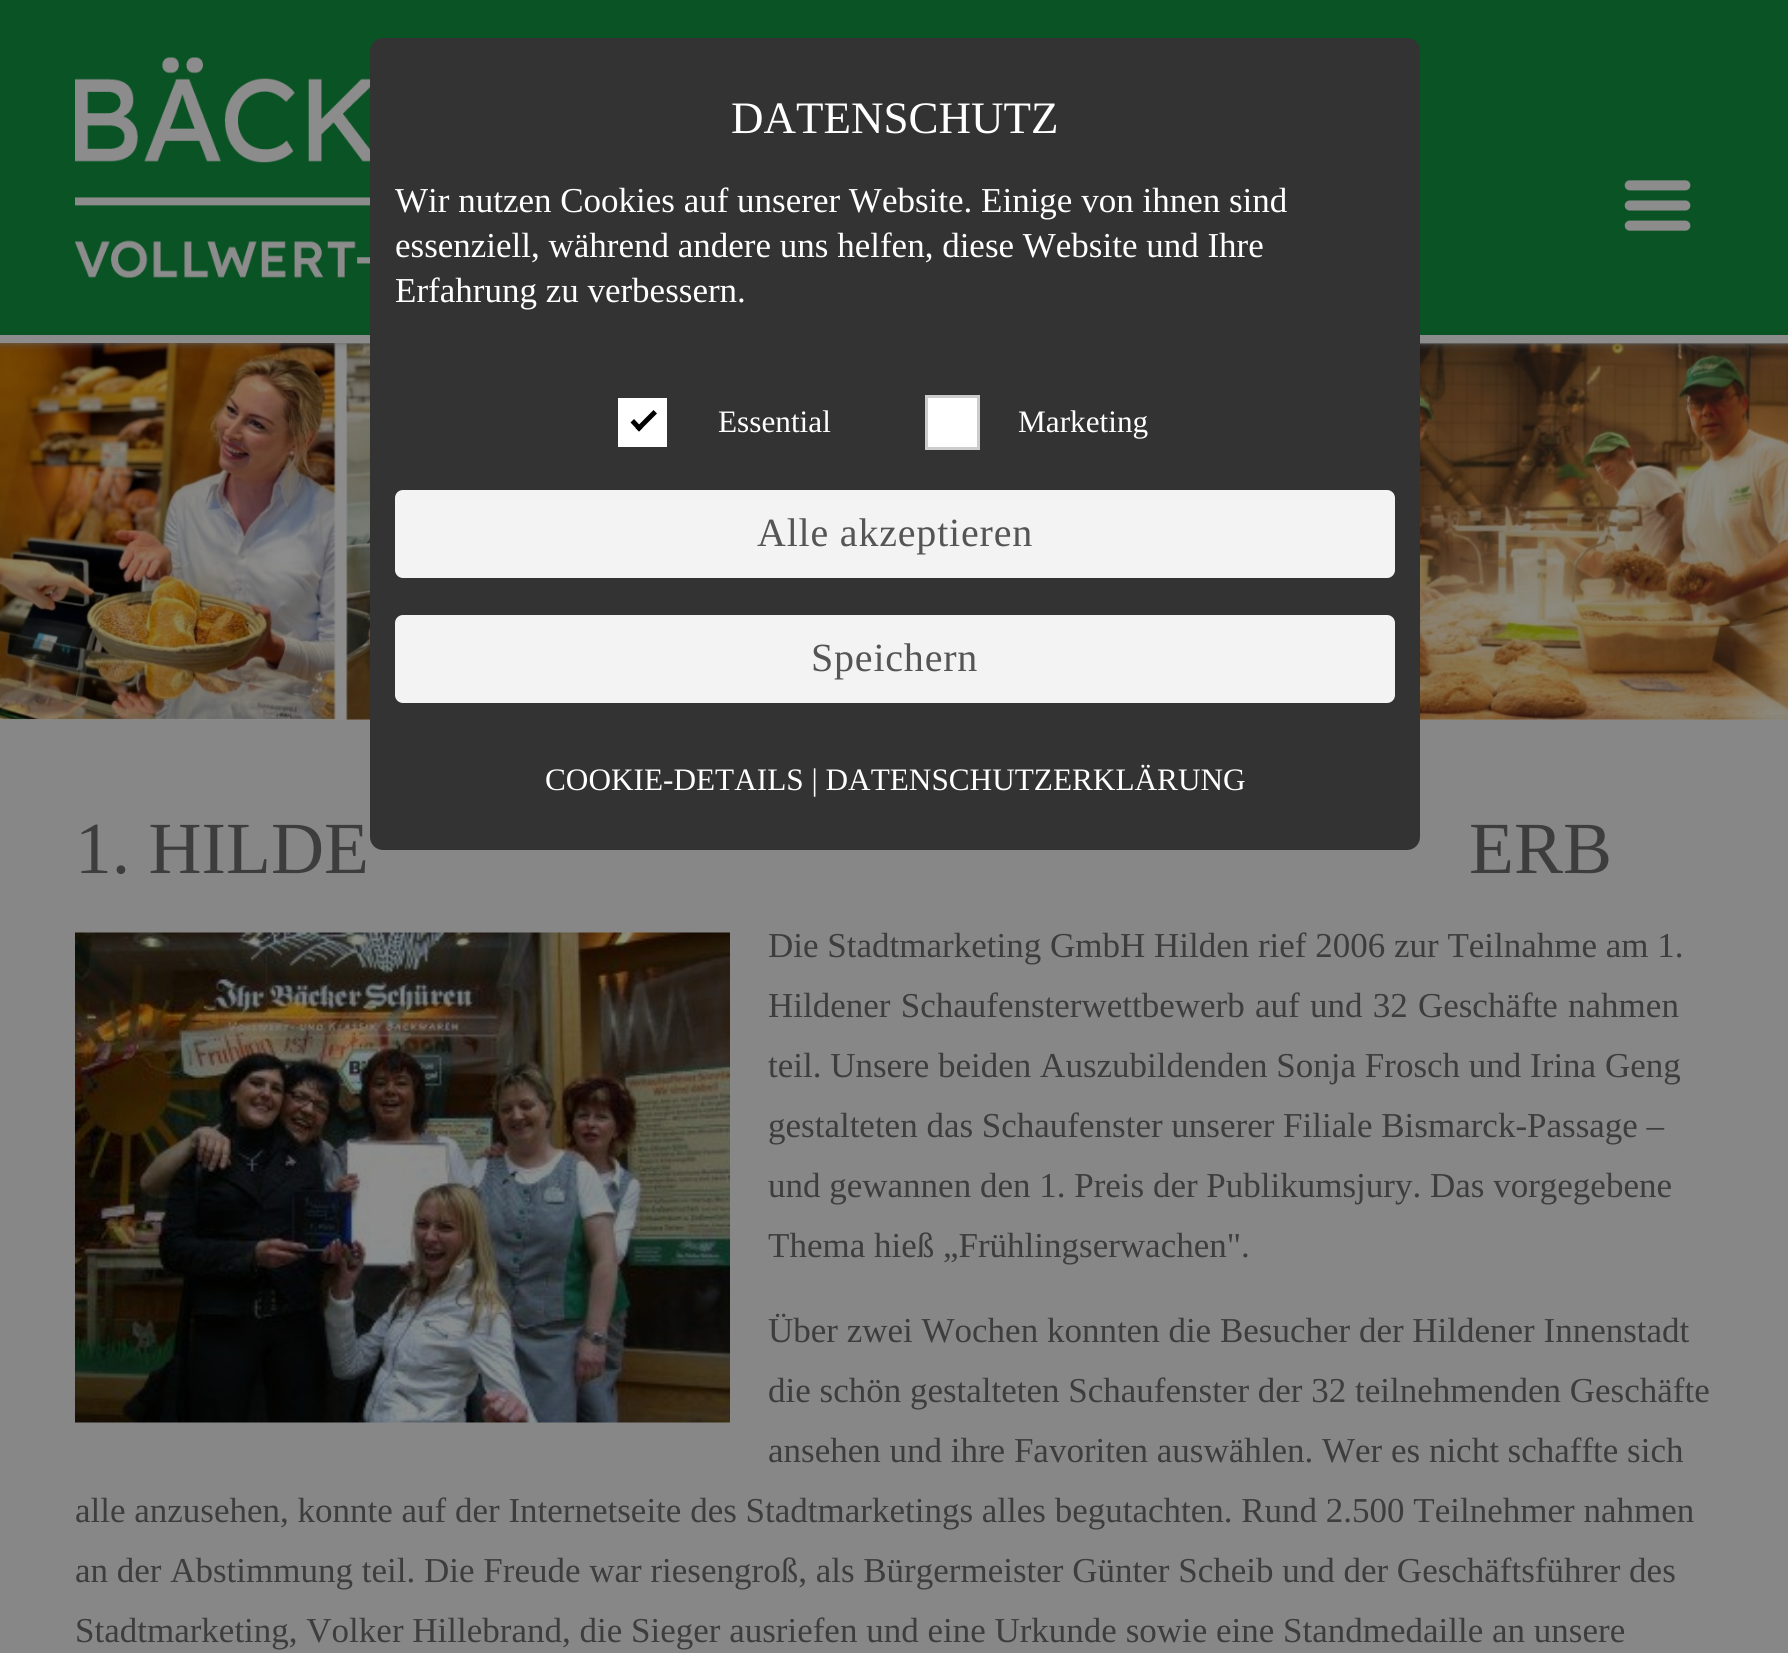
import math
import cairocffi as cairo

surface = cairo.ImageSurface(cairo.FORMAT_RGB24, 1788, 1653)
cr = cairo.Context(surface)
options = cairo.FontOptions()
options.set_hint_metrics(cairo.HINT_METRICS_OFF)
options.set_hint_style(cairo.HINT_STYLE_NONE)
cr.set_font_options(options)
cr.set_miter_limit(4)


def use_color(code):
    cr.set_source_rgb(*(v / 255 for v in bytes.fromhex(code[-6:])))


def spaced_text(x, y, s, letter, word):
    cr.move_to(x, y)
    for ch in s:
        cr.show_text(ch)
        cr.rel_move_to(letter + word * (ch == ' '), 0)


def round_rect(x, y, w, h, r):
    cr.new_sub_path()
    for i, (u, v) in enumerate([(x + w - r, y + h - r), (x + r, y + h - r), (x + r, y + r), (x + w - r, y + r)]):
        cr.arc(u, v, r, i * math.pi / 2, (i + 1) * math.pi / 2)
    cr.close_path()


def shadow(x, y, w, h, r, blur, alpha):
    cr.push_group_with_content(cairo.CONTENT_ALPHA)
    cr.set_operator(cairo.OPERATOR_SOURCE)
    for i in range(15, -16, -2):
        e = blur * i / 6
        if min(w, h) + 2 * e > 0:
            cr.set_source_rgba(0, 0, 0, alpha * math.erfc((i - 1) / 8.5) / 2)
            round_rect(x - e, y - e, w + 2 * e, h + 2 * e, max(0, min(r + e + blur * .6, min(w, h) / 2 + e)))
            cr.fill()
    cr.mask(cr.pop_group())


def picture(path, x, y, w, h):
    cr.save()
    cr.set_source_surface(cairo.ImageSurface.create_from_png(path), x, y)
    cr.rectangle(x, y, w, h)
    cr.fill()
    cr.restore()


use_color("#ffffff")
cr.paint()
picture("img3.png", 0, 343, 1788, 377)
use_color("#646464")
shadow(0, 0, 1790, 343, 0, 4, 1)
use_color("#0a5324")
cr.rectangle(0, 0, 1788, 335)
cr.fill()
use_color("#8c8c8c")
cr.rectangle(0, 335, 1788, 8)
cr.fill()
use_color("#878787")
cr.rectangle(0, 720, 1788, 933)
cr.fill()
use_color("#333333")
round_rect(370, 38, 1050, 812, 13)
cr.fill()
cr.select_font_face("Liberation Serif")
cr.set_font_size(45)
use_color("#ffffff")
cr.move_to(731, 133)
cr.show_text("DATENSCHUTZ")
cr.set_font_size(35)
cr.move_to(395, 212)
cr.show_text("Wir nutzen Cookies auf unserer Website. Einige von ihnen sind")
cr.move_to(395, 257)
cr.show_text("essenziell, während andere uns helfen, diese Website und Ihre")
cr.move_to(395, 302)
cr.show_text("Erfahrung zu verbessern.")
cr.rectangle(618, 398, 49, 49)
cr.fill()
use_color("#000000")
cr.new_path()
cr.move_to(635.5, 428)
cr.line_to(653.5, 410)
cr.line_to(657, 413.5)
cr.line_to(639, 431.5)
cr.close_path()
cr.fill()
cr.new_path()
cr.move_to(630.5, 422.5)
cr.line_to(634, 419)
cr.line_to(642.5, 428)
cr.line_to(639, 431.5)
cr.close_path()
cr.fill()
cr.set_font_size(31.25)
use_color("#ffffff")
cr.move_to(718, 432)
cr.show_text("Essential")
cr.rectangle(926.5, 396.5, 52, 52)
cr.fill_preserve()
use_color("#cccccc")
cr.set_line_width(3)
cr.stroke()
use_color("#ffffff")
cr.move_to(1018, 432)
cr.show_text("Marketing")
use_color("#f3f3f3")
round_rect(395, 490, 1000, 88, 8)
cr.fill()
cr.set_font_size(40)
use_color("#555555")
spaced_text(757, 546, "Alle akzeptieren", 0.8, 0)
use_color("#f3f3f3")
round_rect(395, 615, 1000, 88, 8)
cr.fill()
use_color("#555555")
spaced_text(811, 671, "Speichern", 0.8, 0)
cr.set_font_size(31.25)
use_color("#ffffff")
cr.move_to(545, 790)
cr.show_text("COOKIE-DETAILS | DATENSCHUTZERKLÄRUNG")
picture("img1.png", 75, 57, 295, 221)
picture("img2.png", 1624, 180, 67, 51)
cr.set_font_size(73.5)
use_color("#3e3d3d")
cr.move_to(75, 873)
cr.show_text("1. HILDE")
cr.move_to(1469, 873)
cr.show_text("ERB")
picture("img4.png", 75, 932, 655, 491)
cr.set_font_size(35)
cr.move_to(768, 957)
cr.show_text("Die Stadtmarketing GmbH Hilden rief 2006 zur Teilnahme am 1.")
spaced_text(768, 1017, "Hildener Schaufensterwettbewerb auf und 32 Geschäfte nahmen", 0, 1.5)
cr.move_to(768, 1077)
cr.show_text("teil. Unsere beiden Auszubildenden Sonja Frosch und Irina Geng")
cr.move_to(768, 1137)
cr.show_text("gestalteten das Schaufenster unserer Filiale Bismarck-Passage –")
cr.move_to(768, 1197)
cr.show_text("und gewannen den 1. Preis der Publikumsjury. Das vorgegebene")
cr.move_to(768, 1257)
cr.show_text("Thema hieß „Frühlingserwachen\".")
cr.move_to(768, 1342)
cr.show_text("Über zwei Wochen konnten die Besucher der Hildener Innenstadt")
cr.move_to(768, 1402)
cr.show_text("die schön gestalteten Schaufenster der 32 teilnehmenden Geschäfte")
cr.move_to(768, 1462)
cr.show_text("ansehen und ihre Favoriten auswählen. Wer es nicht schaffte sich")
cr.move_to(75, 1522)
cr.show_text("alle anzusehen, konnte auf der Internetseite des Stadtmarketings alles begutachten. Rund 2.500 Teilnehmer nahmen")
cr.move_to(75, 1582)
cr.show_text("an der Abstimmung teil. Die Freude war riesengroß, als Bürgermeister Günter Scheib und der Geschäftsführer des")
cr.move_to(75, 1642)
cr.show_text("Stadtmarketing, Volker Hillebrand, die Sieger ausriefen und eine Urkunde sowie eine Standmedaille an unsere")
surface.write_to_png("result.png")
